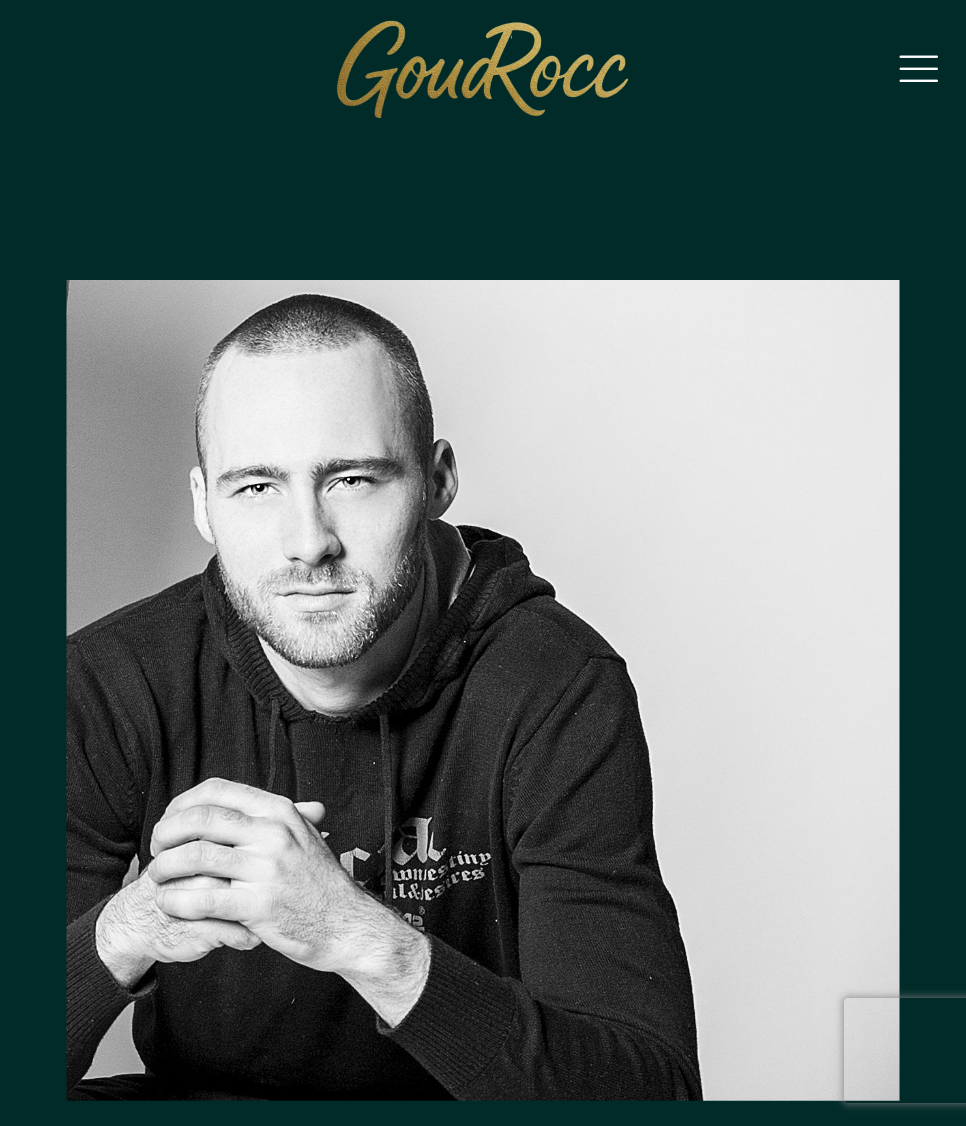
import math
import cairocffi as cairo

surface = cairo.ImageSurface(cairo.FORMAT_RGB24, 966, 1126)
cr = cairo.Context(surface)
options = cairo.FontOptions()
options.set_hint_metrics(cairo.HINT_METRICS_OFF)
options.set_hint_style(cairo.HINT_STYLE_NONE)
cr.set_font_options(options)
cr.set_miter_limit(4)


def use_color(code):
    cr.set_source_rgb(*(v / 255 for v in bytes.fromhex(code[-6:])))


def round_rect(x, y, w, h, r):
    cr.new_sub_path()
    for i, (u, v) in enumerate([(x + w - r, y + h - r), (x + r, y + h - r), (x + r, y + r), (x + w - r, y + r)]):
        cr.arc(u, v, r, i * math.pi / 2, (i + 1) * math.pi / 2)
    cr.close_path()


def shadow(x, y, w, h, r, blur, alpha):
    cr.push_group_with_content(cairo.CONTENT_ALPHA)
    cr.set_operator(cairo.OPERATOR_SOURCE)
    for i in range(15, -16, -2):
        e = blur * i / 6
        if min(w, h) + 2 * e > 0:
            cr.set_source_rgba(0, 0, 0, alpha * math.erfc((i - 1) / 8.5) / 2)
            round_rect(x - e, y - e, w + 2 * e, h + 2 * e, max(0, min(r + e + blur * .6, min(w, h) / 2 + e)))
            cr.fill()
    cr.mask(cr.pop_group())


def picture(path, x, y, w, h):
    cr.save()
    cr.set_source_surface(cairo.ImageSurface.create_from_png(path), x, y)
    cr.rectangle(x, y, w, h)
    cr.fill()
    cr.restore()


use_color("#002b28")
cr.paint()
picture("img1.png", 336, 20, 293, 99)
picture("img2.png", 899, 55, 39, 27)
picture("img3.png", 66, 280, 834, 821)
cr.save()
cr.set_fill_rule(cairo.FILL_RULE_EVEN_ODD)
cr.new_path()
cr.move_to(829, 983)
cr.line_to(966, 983)
cr.line_to(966, 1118)
cr.line_to(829, 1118)
cr.close_path()
cr.move_to(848, 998)
cr.line_to(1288, 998)
cr.curve_to(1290, 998, 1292, 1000, 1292, 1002)
cr.line_to(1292, 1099)
cr.curve_to(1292, 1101, 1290, 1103, 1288, 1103)
cr.line_to(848, 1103)
cr.curve_to(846, 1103, 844, 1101, 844, 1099)
cr.line_to(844, 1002)
cr.curve_to(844, 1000, 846, 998, 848, 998)
cr.close_path()
cr.clip()
use_color("#808080")
shadow(844, 998, 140, 105, 4, 4.5, 1)
cr.restore()
surface.write_to_png("result.png")
